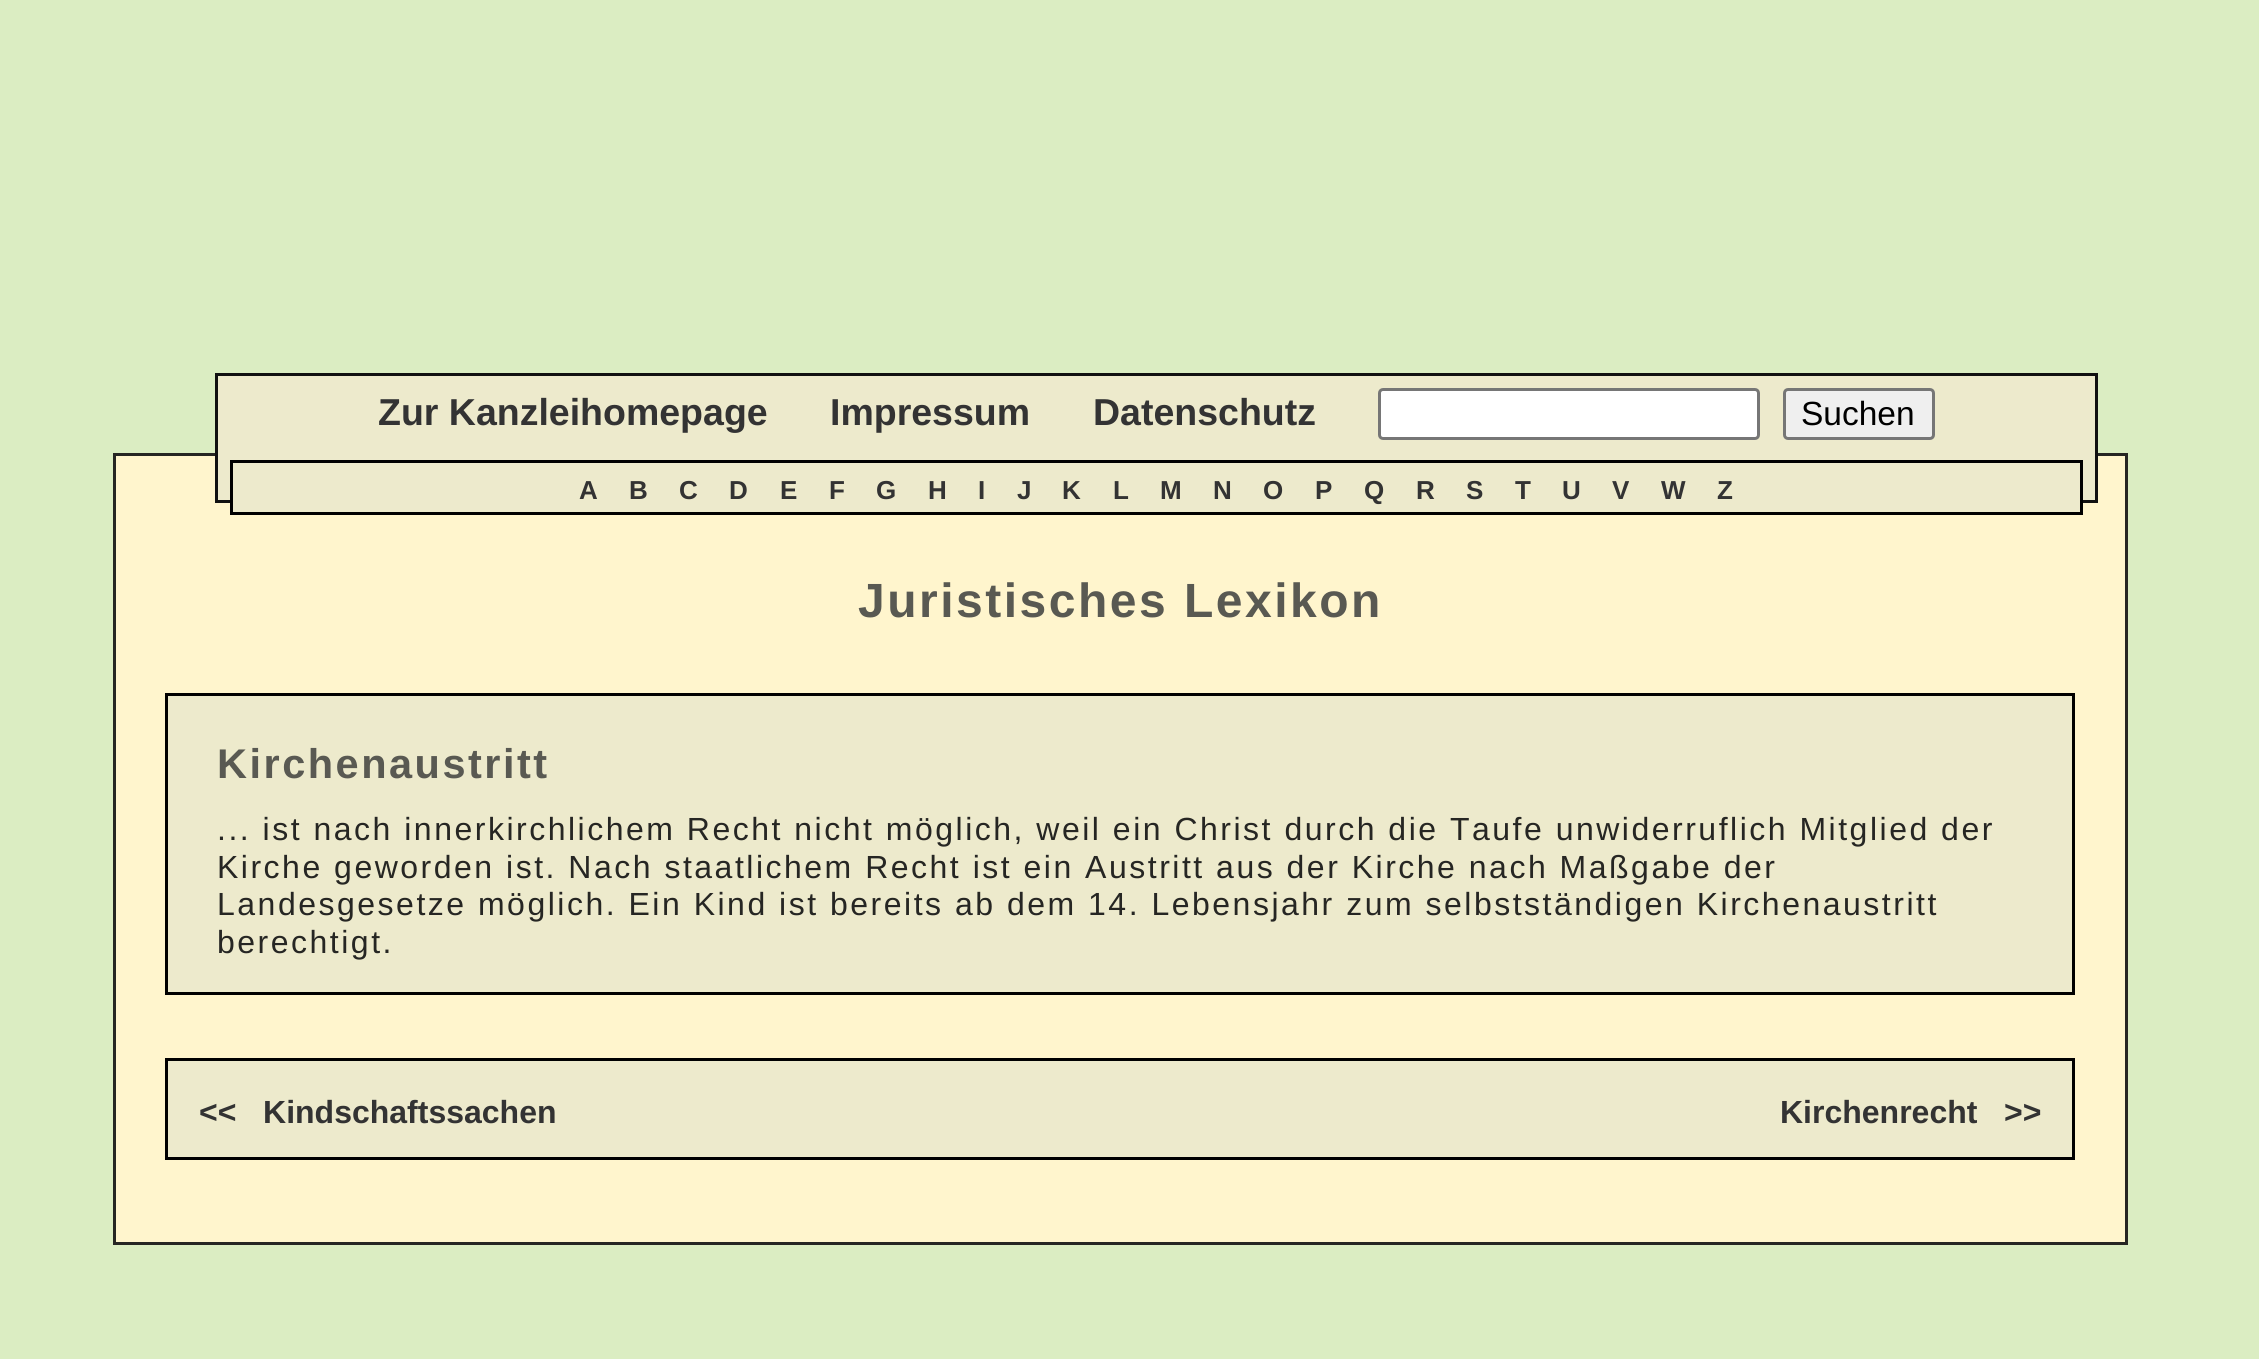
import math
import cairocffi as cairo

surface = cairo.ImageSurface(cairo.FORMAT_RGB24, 2259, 1359)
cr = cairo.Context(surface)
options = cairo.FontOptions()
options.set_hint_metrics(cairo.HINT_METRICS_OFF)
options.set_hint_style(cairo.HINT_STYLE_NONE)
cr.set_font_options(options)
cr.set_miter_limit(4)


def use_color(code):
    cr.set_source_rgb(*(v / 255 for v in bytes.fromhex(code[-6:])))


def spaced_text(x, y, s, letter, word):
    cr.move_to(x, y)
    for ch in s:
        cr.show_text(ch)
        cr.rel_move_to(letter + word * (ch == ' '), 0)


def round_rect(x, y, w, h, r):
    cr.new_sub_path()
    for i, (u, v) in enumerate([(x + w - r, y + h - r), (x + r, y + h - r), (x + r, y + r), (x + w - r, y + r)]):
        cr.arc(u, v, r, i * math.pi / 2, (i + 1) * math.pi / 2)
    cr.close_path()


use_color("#dbedc2")
cr.paint()
use_color("#fff5cd")
cr.rectangle(114.5, 454.5, 2012, 789)
cr.fill_preserve()
use_color("#262623")
cr.set_line_width(3)
cr.stroke()
use_color("#edeacc")
cr.rectangle(216.5, 374.5, 1880, 127)
cr.fill_preserve()
use_color("#111111")
cr.stroke()
cr.select_font_face("Liberation Sans", cairo.FONT_SLANT_NORMAL, cairo.FONT_WEIGHT_BOLD)
cr.set_font_size(37.5)
use_color("#333333")
cr.move_to(378, 425)
cr.show_text("Zur Kanzleihomepage")
cr.move_to(830, 425)
cr.show_text("Impressum")
cr.move_to(1093, 425)
cr.show_text("Datenschutz")
use_color("#ffffff")
round_rect(1379.5, 389.5, 379, 49, 3.5)
cr.fill_preserve()
use_color("#767676")
cr.stroke()
use_color("#efefef")
round_rect(1784.5, 389.5, 149, 49, 3.5)
cr.fill_preserve()
use_color("#767676")
cr.stroke()
cr.select_font_face("Liberation Sans")
cr.set_font_size(33.5)
use_color("#000000")
cr.move_to(1801, 425)
cr.show_text("Suchen")
use_color("#edeacc")
cr.rectangle(233, 500, 1847, 12)
cr.fill()
cr.rectangle(231.5, 461.5, 1850, 52)
use_color("#000000")
cr.stroke()
cr.select_font_face("Liberation Sans", cairo.FONT_SLANT_NORMAL, cairo.FONT_WEIGHT_BOLD)
cr.set_font_size(26)
use_color("#333333")
cr.move_to(579, 499)
cr.show_text("A")
cr.move_to(629, 499)
cr.show_text("B")
cr.move_to(679, 499)
cr.show_text("C")
cr.move_to(729, 499)
cr.show_text("D")
cr.move_to(780, 499)
cr.show_text("E")
cr.move_to(829, 499)
cr.show_text("F")
cr.move_to(876, 499)
cr.show_text("G")
cr.move_to(928, 499)
cr.show_text("H")
cr.move_to(978, 499)
cr.show_text("I")
cr.move_to(1017, 499)
cr.show_text("J")
cr.move_to(1062, 499)
cr.show_text("K")
cr.move_to(1113, 499)
cr.show_text("L")
cr.move_to(1160, 499)
cr.show_text("M")
cr.move_to(1213, 499)
cr.show_text("N")
cr.move_to(1263, 499)
cr.show_text("O")
cr.move_to(1315, 499)
cr.show_text("P")
cr.move_to(1364, 499)
cr.show_text("Q")
cr.move_to(1416, 499)
cr.show_text("R")
cr.move_to(1466, 499)
cr.show_text("S")
cr.move_to(1515, 499)
cr.show_text("T")
cr.move_to(1562, 499)
cr.show_text("U")
cr.move_to(1612, 499)
cr.show_text("V")
cr.move_to(1661, 499)
cr.show_text("W")
cr.move_to(1717, 499)
cr.show_text("Z")
cr.set_font_size(48)
use_color("#595952")
spaced_text(858, 617, "Juristisches Lexikon", 2.5, 0)
use_color("#edeacc")
cr.rectangle(166.5, 694.5, 1907, 299)
cr.fill_preserve()
use_color("#000000")
cr.stroke()
cr.set_font_size(41.5)
use_color("#595952")
spaced_text(217, 778, "Kirchenaustritt", 2.5, 0)
cr.select_font_face("Liberation Sans")
cr.set_font_size(32)
use_color("#262623")
spaced_text(217, 840, "... ist nach innerkirchlichem Recht nicht möglich, weil ein Christ durch die Taufe unwiderruflich Mitglied der", 2.5, 0)
spaced_text(217, 878, "Kirche geworden ist. Nach staatlichem Recht ist ein Austritt aus der Kirche nach Maßgabe der", 2.5, 0)
spaced_text(217, 915, "Landesgesetze möglich. Ein Kind ist bereits ab dem 14. Lebensjahr zum selbstständigen Kirchenaustritt", 2.5, 0)
spaced_text(217, 953, "berechtigt.", 2.5, 0)
use_color("#edeacc")
cr.rectangle(166.5, 1059.5, 1907, 99)
cr.fill_preserve()
use_color("#000000")
cr.stroke()
cr.select_font_face("Liberation Sans", cairo.FONT_SLANT_NORMAL, cairo.FONT_WEIGHT_BOLD)
use_color("#333333")
cr.move_to(199, 1123)
cr.show_text("<<   Kindschaftssachen")
cr.move_to(1780, 1123)
cr.show_text("Kirchenrecht   >>")
surface.write_to_png("result.png")
